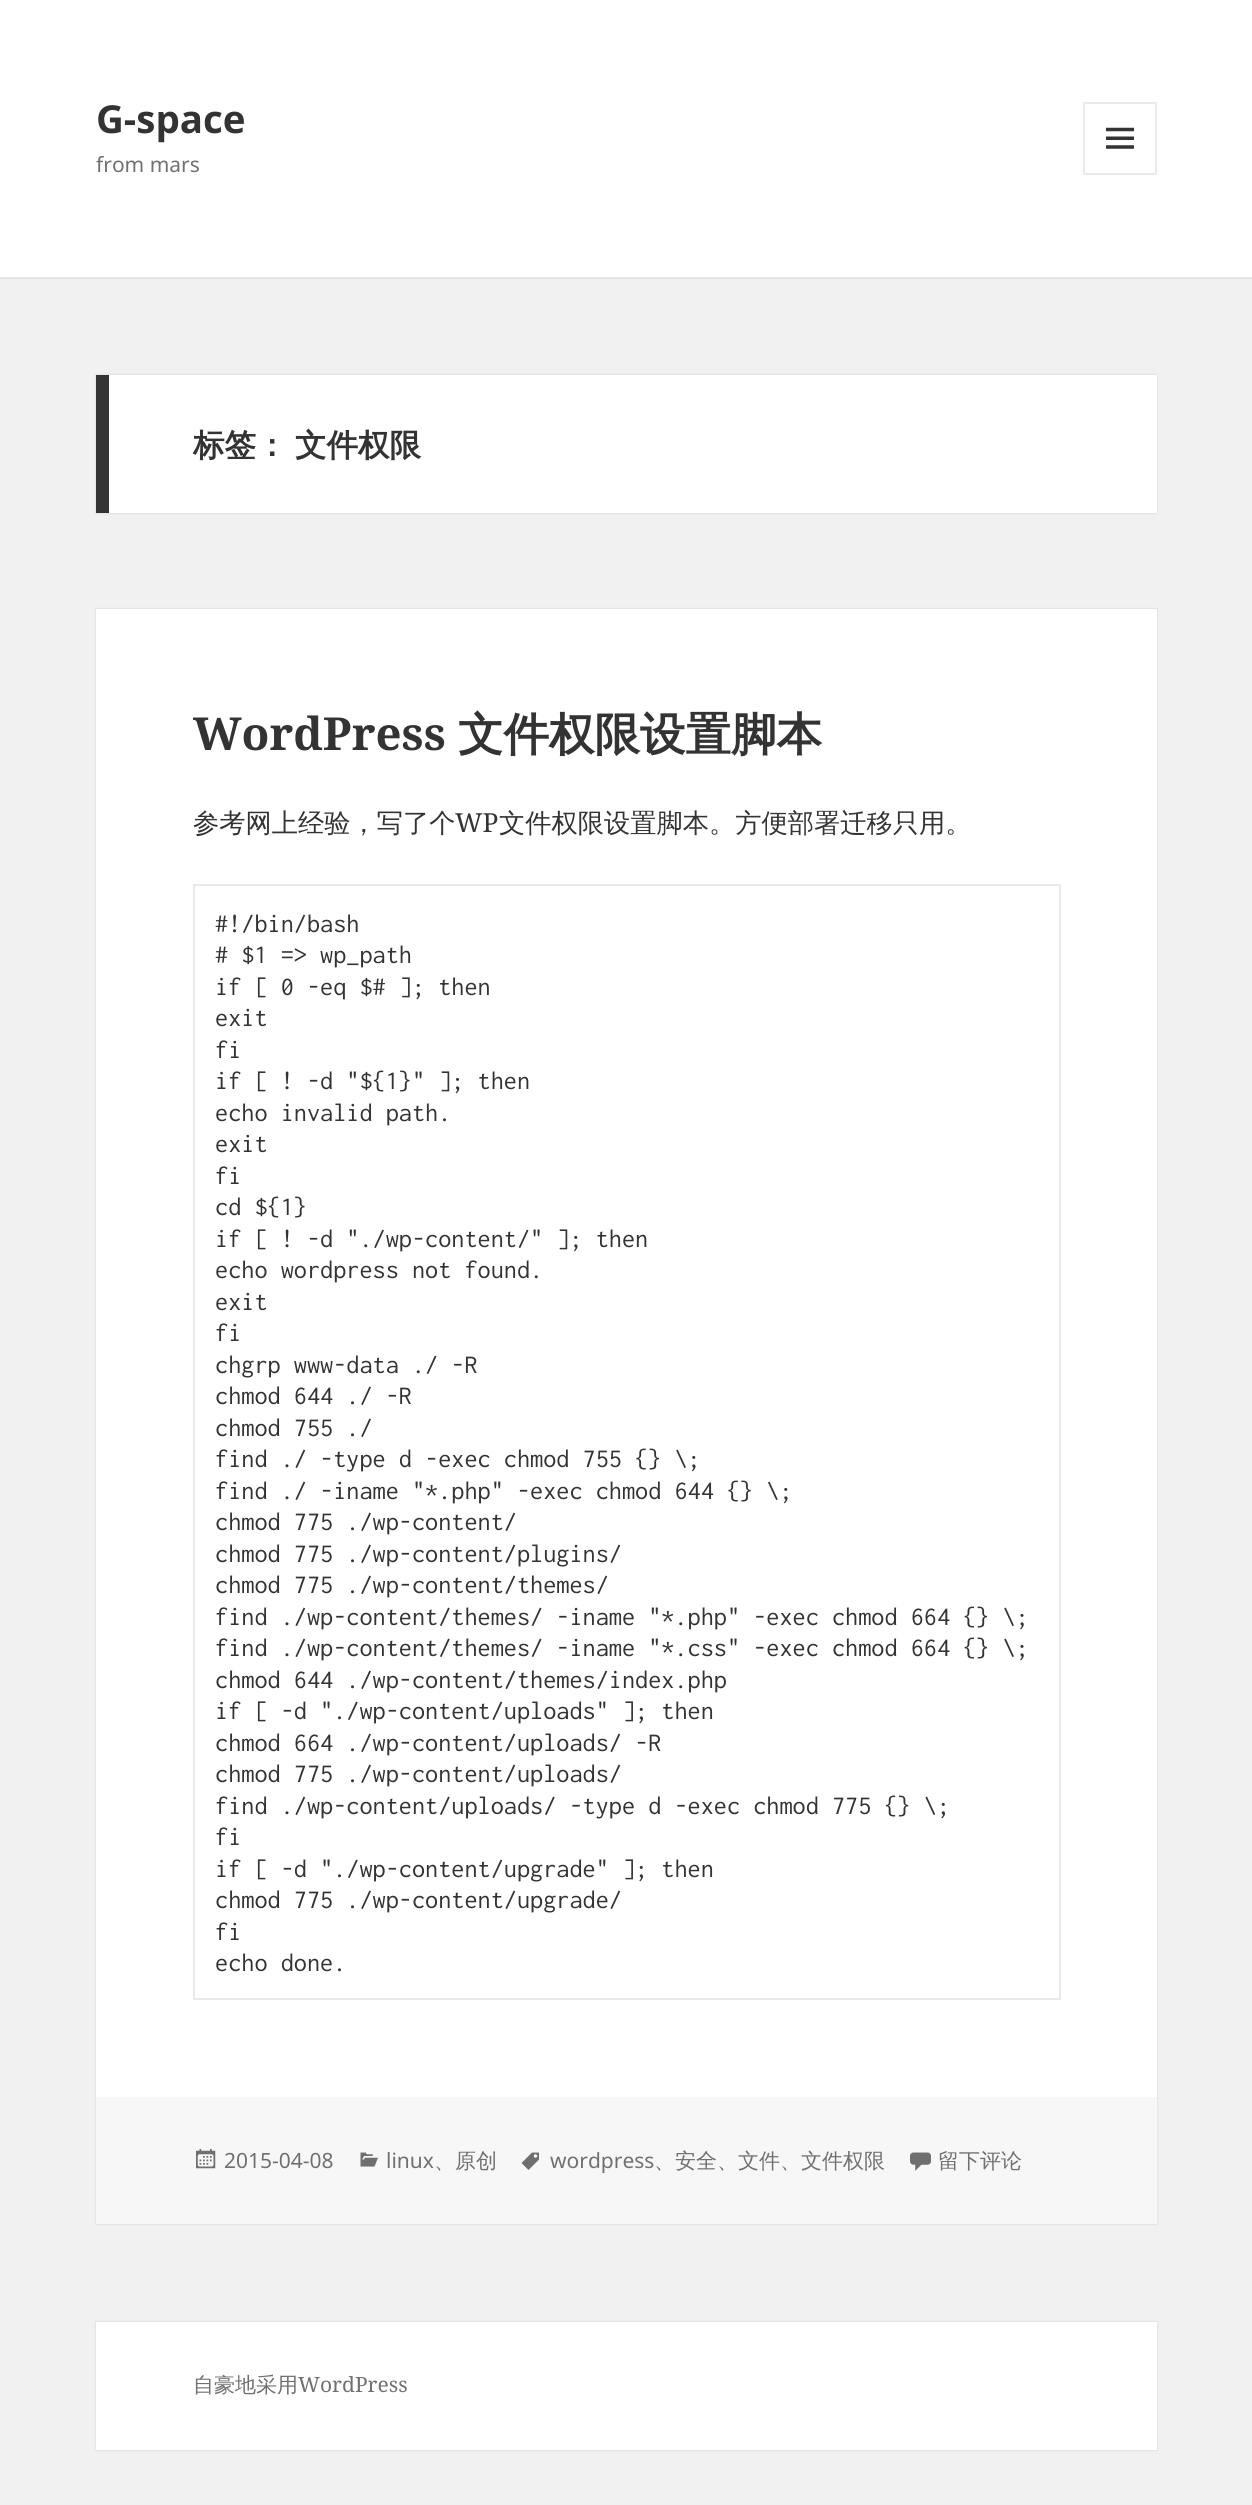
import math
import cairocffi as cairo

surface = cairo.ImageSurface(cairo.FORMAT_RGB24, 1252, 2505)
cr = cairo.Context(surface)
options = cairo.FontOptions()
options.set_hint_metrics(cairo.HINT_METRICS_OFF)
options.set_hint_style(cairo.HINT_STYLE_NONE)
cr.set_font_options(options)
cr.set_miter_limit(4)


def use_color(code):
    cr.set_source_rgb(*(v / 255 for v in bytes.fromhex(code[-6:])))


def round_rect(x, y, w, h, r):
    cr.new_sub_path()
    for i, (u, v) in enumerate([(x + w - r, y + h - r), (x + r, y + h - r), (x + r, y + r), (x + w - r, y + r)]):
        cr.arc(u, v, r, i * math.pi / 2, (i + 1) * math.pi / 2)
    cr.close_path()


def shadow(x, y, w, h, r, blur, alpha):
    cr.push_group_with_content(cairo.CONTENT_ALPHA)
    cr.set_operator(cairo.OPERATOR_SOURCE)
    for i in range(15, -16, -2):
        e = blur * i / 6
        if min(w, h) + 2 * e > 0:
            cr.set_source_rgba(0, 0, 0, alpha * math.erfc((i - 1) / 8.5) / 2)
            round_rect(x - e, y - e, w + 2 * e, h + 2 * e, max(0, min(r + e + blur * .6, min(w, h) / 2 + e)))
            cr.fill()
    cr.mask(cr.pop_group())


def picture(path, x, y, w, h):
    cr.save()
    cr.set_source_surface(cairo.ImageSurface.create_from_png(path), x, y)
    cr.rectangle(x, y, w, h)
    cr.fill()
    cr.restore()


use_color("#f1f1f1")
cr.paint()
use_color("#dedede")
cr.rectangle(0, 278, 1252, 1)
cr.fill()
use_color("#ffffff")
cr.rectangle(0, 0, 1252, 277)
cr.fill()
use_color("#ebebeb")
cr.rectangle(0, 277, 1252, 1)
cr.fill()
cr.select_font_face("Noto Sans", cairo.FONT_SLANT_NORMAL, cairo.FONT_WEIGHT_BOLD)
cr.set_font_size(38.5)
use_color("#333333")
cr.move_to(96, 133)
cr.show_text("G-space")
cr.rectangle(1084, 103, 72, 71)
use_color("#ebebeb")
cr.stroke()
picture("img1.png", 1106, 127, 28, 22)
cr.select_font_face("Noto Sans")
cr.set_font_size(21)
use_color("#707070")
cr.move_to(96, 172)
cr.show_text("from mars")
use_color("#000000")
shadow(96, 375, 1061, 138, 0, 1, 0.15)
use_color("#ffffff")
cr.rectangle(109, 375, 1048, 138)
cr.fill()
use_color("#333333")
cr.rectangle(96, 375, 13, 138)
cr.fill()
cr.select_font_face("WenQuanYi Zen Hei", cairo.FONT_SLANT_NORMAL, cairo.FONT_WEIGHT_BOLD)
cr.set_font_size(31.5)
cr.move_to(193, 456)
cr.show_text("标签：")
cr.move_to(295, 456)
cr.show_text("文件权限")
use_color("#000000")
shadow(96, 609, 1061, 1615, 0, 1, 0.15)
use_color("#ffffff")
cr.rectangle(96, 609, 1061, 1488)
cr.fill()
cr.select_font_face("Noto Serif", cairo.FONT_SLANT_NORMAL, cairo.FONT_WEIGHT_BOLD)
cr.set_font_size(45.5)
use_color("#333333")
cr.move_to(193, 750)
cr.show_text("WordPress")
cr.select_font_face("WenQuanYi Zen Hei", cairo.FONT_SLANT_NORMAL, cairo.FONT_WEIGHT_BOLD)
cr.move_to(458, 750)
cr.show_text("文件权限设置脚本")
cr.select_font_face("WenQuanYi Zen Hei Medium")
cr.set_font_size(26.25)
cr.move_to(193, 832)
cr.show_text("参考网上经验，写了个")
cr.select_font_face("Noto Serif")
cr.move_to(455, 832)
cr.show_text("WP")
cr.select_font_face("WenQuanYi Zen Hei Medium")
cr.move_to(499, 832)
cr.show_text("文件权限设置脚本。方便部署迁移只用。")
cr.rectangle(194, 885, 866, 1114)
use_color("#e9e9e9")
cr.stroke()
cr.select_font_face("Inconsolata")
use_color("#333333")
cr.move_to(215, 932)
cr.show_text("#!/bin/bash")
cr.move_to(215, 963)
cr.show_text("# $1 => wp_path")
cr.move_to(215, 995)
cr.show_text("if [ 0 -eq $# ]; then")
cr.move_to(215, 1026)
cr.show_text("exit")
cr.move_to(215, 1058)
cr.show_text("fi")
cr.move_to(215, 1089)
cr.show_text("if [ ! -d \"${1}\" ]; then")
cr.move_to(215, 1121)
cr.show_text("echo invalid path.")
cr.move_to(215, 1152)
cr.show_text("exit")
cr.move_to(215, 1184)
cr.show_text("fi")
cr.move_to(215, 1215)
cr.show_text("cd ${1}")
cr.move_to(215, 1247)
cr.show_text("if [ ! -d \"./wp-content/\" ]; then")
cr.move_to(215, 1278)
cr.show_text("echo wordpress not found.")
cr.move_to(215, 1310)
cr.show_text("exit")
cr.move_to(215, 1341)
cr.show_text("fi")
cr.move_to(215, 1373)
cr.show_text("chgrp www-data ./ -R")
cr.move_to(215, 1404)
cr.show_text("chmod 644 ./ -R")
cr.move_to(215, 1436)
cr.show_text("chmod 755 ./")
cr.move_to(215, 1467)
cr.show_text("find ./ -type d -exec chmod 755 {} \\;")
cr.move_to(215, 1499)
cr.show_text("find ./ -iname \"*.php\" -exec chmod 644 {} \\;")
cr.move_to(215, 1530)
cr.show_text("chmod 775 ./wp-content/")
cr.move_to(215, 1562)
cr.show_text("chmod 775 ./wp-content/plugins/")
cr.move_to(215, 1593)
cr.show_text("chmod 775 ./wp-content/themes/")
cr.move_to(215, 1625)
cr.show_text("find ./wp-content/themes/ -iname \"*.php\" -exec chmod 664 {} \\;")
cr.move_to(215, 1656)
cr.show_text("find ./wp-content/themes/ -iname \"*.css\" -exec chmod 664 {} \\;")
cr.move_to(215, 1688)
cr.show_text("chmod 644 ./wp-content/themes/index.php")
cr.move_to(215, 1719)
cr.show_text("if [ -d \"./wp-content/uploads\" ]; then")
cr.move_to(215, 1751)
cr.show_text("chmod 664 ./wp-content/uploads/ -R")
cr.move_to(215, 1782)
cr.show_text("chmod 775 ./wp-content/uploads/")
cr.move_to(215, 1814)
cr.show_text("find ./wp-content/uploads/ -type d -exec chmod 775 {} \\;")
cr.move_to(215, 1845)
cr.show_text("fi")
cr.move_to(215, 1877)
cr.show_text("if [ -d \"./wp-content/upgrade\" ]; then")
cr.move_to(215, 1908)
cr.show_text("chmod 775 ./wp-content/upgrade/")
cr.move_to(215, 1940)
cr.show_text("fi")
cr.move_to(215, 1971)
cr.show_text("echo done.")
use_color("#f7f7f7")
cr.rectangle(96, 2097, 1061, 127)
cr.fill()
picture("img2.png", 196, 2149, 20, 20)
cr.select_font_face("Noto Sans")
cr.set_font_size(21)
use_color("#707070")
cr.move_to(224, 2168)
cr.show_text("2015-04-08")
picture("img3.png", 360, 2152, 18, 15)
cr.move_to(386, 2168)
cr.show_text("linux")
cr.select_font_face("WenQuanYi Zen Hei Medium")
cr.move_to(434, 2168)
cr.show_text("、原创")
picture("img4.png", 521, 2152, 18, 18)
cr.select_font_face("Noto Sans")
cr.move_to(550, 2168)
cr.show_text("wordpress")
cr.select_font_face("WenQuanYi Zen Hei Medium")
cr.move_to(654, 2168)
cr.show_text("、安全、文件、文件权限")
picture("img5.png", 910, 2152, 21, 19)
cr.move_to(938, 2168)
cr.show_text("留下评论")
use_color("#000000")
shadow(96, 2322, 1061, 128, 0, 1, 0.15)
use_color("#ffffff")
cr.rectangle(96, 2322, 1061, 128)
cr.fill()
use_color("#707070")
cr.move_to(193, 2392)
cr.show_text("自豪地采用")
cr.select_font_face("Noto Serif")
cr.move_to(298, 2392)
cr.show_text("WordPress")
surface.write_to_png("result.png")
